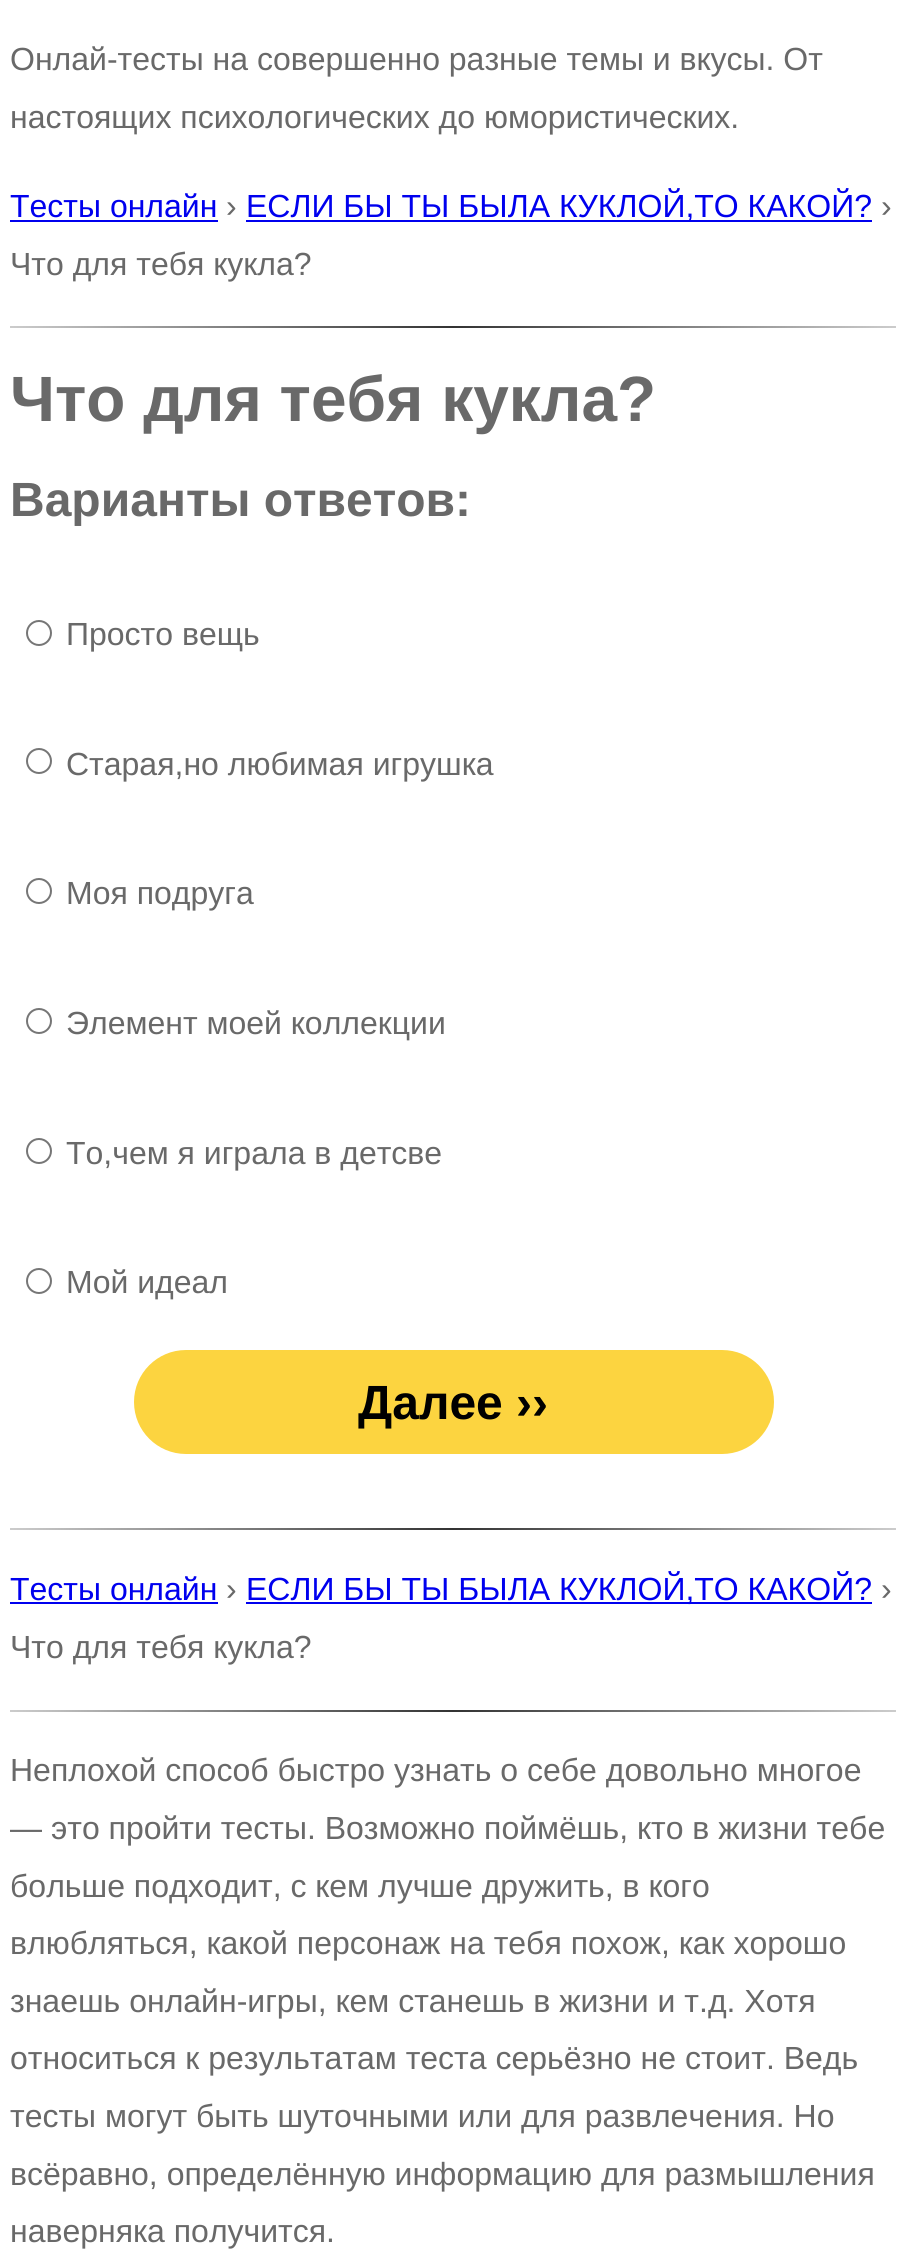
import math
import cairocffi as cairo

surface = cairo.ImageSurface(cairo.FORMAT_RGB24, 906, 2254)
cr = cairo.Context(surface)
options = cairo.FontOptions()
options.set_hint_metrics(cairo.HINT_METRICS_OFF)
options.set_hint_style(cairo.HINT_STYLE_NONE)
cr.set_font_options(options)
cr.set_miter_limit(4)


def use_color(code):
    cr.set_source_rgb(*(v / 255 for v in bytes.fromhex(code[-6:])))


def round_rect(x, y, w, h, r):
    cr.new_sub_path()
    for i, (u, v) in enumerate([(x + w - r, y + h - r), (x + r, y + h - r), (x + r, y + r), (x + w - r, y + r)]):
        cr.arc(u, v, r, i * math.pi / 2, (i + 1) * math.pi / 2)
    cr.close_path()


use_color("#ffffff")
cr.paint()
cr.select_font_face("Liberation Sans")
cr.set_font_size(32)
use_color("#696969")
cr.move_to(10, 70)
cr.show_text("Онлай-тесты на совершенно разные темы и вкусы. От")
cr.move_to(10, 128)
cr.show_text("настоящих психологических до юмористических.")
use_color("#0000ee")
cr.move_to(10, 217)
cr.show_text("Тесты онлайн")
cr.rectangle(10, 220, 208, 2)
cr.fill()
use_color("#696969")
cr.move_to(226, 217)
cr.show_text("›")
use_color("#0000ee")
cr.rectangle(246, 220, 626, 2)
cr.fill()
cr.move_to(246, 217)
cr.show_text("ЕСЛИ БЫ ТЫ БЫЛА КУКЛОЙ,ТО КАКОЙ?")
use_color("#696969")
cr.move_to(881, 217)
cr.show_text("›")
cr.move_to(10, 275)
cr.show_text("Что для тебя кукла?")
gradient = cairo.LinearGradient(10, 327, 896, 327)
gradient.add_color_stop_rgba(0, 0.8, 0.8, 0.8, 1)
gradient.add_color_stop_rgba(0.5, 0.2, 0.2, 0.2, 1)
gradient.add_color_stop_rgba(1, 0.8, 0.8, 0.8, 1)
cr.set_source(gradient)
cr.rectangle(10, 326, 886, 2)
cr.fill()
cr.select_font_face("Liberation Sans", cairo.FONT_SLANT_NORMAL, cairo.FONT_WEIGHT_BOLD)
cr.set_font_size(64)
use_color("#696969")
cr.move_to(10, 421)
cr.show_text("Что для тебя кукла?")
cr.set_font_size(48)
cr.move_to(10, 516)
cr.show_text("Варианты ответов:")
cr.new_path()
cr.arc(39, 633, 12, 0, 2 * math.pi)
use_color("#767676")
cr.stroke()
cr.select_font_face("Liberation Sans")
cr.set_font_size(32)
use_color("#696969")
cr.move_to(66, 645)
cr.show_text("Просто вещь")
cr.new_path()
cr.arc(39, 761, 12, 0, 2 * math.pi)
use_color("#767676")
cr.stroke()
use_color("#696969")
cr.move_to(66, 775)
cr.show_text("Старая,но любимая игрушка")
cr.new_path()
cr.arc(39, 891, 12, 0, 2 * math.pi)
use_color("#767676")
cr.stroke()
use_color("#696969")
cr.move_to(66, 904)
cr.show_text("Моя подруга")
cr.new_path()
cr.arc(39, 1021, 12, 0, 2 * math.pi)
use_color("#767676")
cr.stroke()
use_color("#696969")
cr.move_to(66, 1034)
cr.show_text("Элемент моей коллекции")
cr.new_path()
cr.arc(39, 1151, 12, 0, 2 * math.pi)
use_color("#767676")
cr.stroke()
use_color("#696969")
cr.move_to(66, 1164)
cr.show_text("То,чем я играла в детсве")
cr.new_path()
cr.arc(39, 1281, 12, 0, 2 * math.pi)
use_color("#767676")
cr.stroke()
use_color("#696969")
cr.move_to(66, 1293)
cr.show_text("Мой идеал")
use_color("#fcd440")
round_rect(134, 1350, 640, 104, 52)
cr.fill()
cr.select_font_face("Liberation Sans", cairo.FONT_SLANT_NORMAL, cairo.FONT_WEIGHT_BOLD)
cr.set_font_size(48)
use_color("#000000")
cr.move_to(358, 1419)
cr.show_text("Далее ››")
gradient = cairo.LinearGradient(10, 1529, 896, 1529)
gradient.add_color_stop_rgba(0, 0.8, 0.8, 0.8, 1)
gradient.add_color_stop_rgba(0.5, 0.2, 0.2, 0.2, 1)
gradient.add_color_stop_rgba(1, 0.8, 0.8, 0.8, 1)
cr.set_source(gradient)
cr.rectangle(10, 1528, 886, 2)
cr.fill()
cr.select_font_face("Liberation Sans")
cr.set_font_size(32)
use_color("#0000ee")
cr.move_to(10, 1600)
cr.show_text("Тесты онлайн")
cr.rectangle(10, 1602, 208, 2)
cr.fill()
use_color("#696969")
cr.move_to(226, 1600)
cr.show_text("›")
use_color("#0000ee")
cr.rectangle(246, 1602, 626, 2)
cr.fill()
cr.move_to(246, 1600)
cr.show_text("ЕСЛИ БЫ ТЫ БЫЛА КУКЛОЙ,ТО КАКОЙ?")
use_color("#696969")
cr.move_to(881, 1600)
cr.show_text("›")
cr.move_to(10, 1658)
cr.show_text("Что для тебя кукла?")
gradient = cairo.LinearGradient(10, 1711, 896, 1711)
gradient.add_color_stop_rgba(0, 0.8, 0.8, 0.8, 1)
gradient.add_color_stop_rgba(0.5, 0.2, 0.2, 0.2, 1)
gradient.add_color_stop_rgba(1, 0.8, 0.8, 0.8, 1)
cr.set_source(gradient)
cr.rectangle(10, 1710, 886, 2)
cr.fill()
use_color("#696969")
cr.move_to(10, 1781)
cr.show_text("Неплохой способ быстро узнать о себе довольно многое")
cr.move_to(10, 1839)
cr.show_text("— это пройти тесты. Возможно поймёшь, кто в жизни тебе")
cr.move_to(10, 1897)
cr.show_text("больше подходит, с кем лучше дружить, в кого")
cr.move_to(10, 1954)
cr.show_text("влюбляться, какой персонаж на тебя похож, как хорошо")
cr.move_to(10, 2012)
cr.show_text("знаешь онлайн-игры, кем станешь в жизни и т.д. Хотя")
cr.move_to(10, 2069)
cr.show_text("относиться к результатам теста серьёзно не стоит. Ведь")
cr.move_to(10, 2127)
cr.show_text("тесты могут быть шуточными или для развлечения. Но")
cr.move_to(10, 2185)
cr.show_text("всёравно, определённую информацию для размышления")
cr.move_to(10, 2242)
cr.show_text("наверняка получится.")
surface.write_to_png("result.png")
